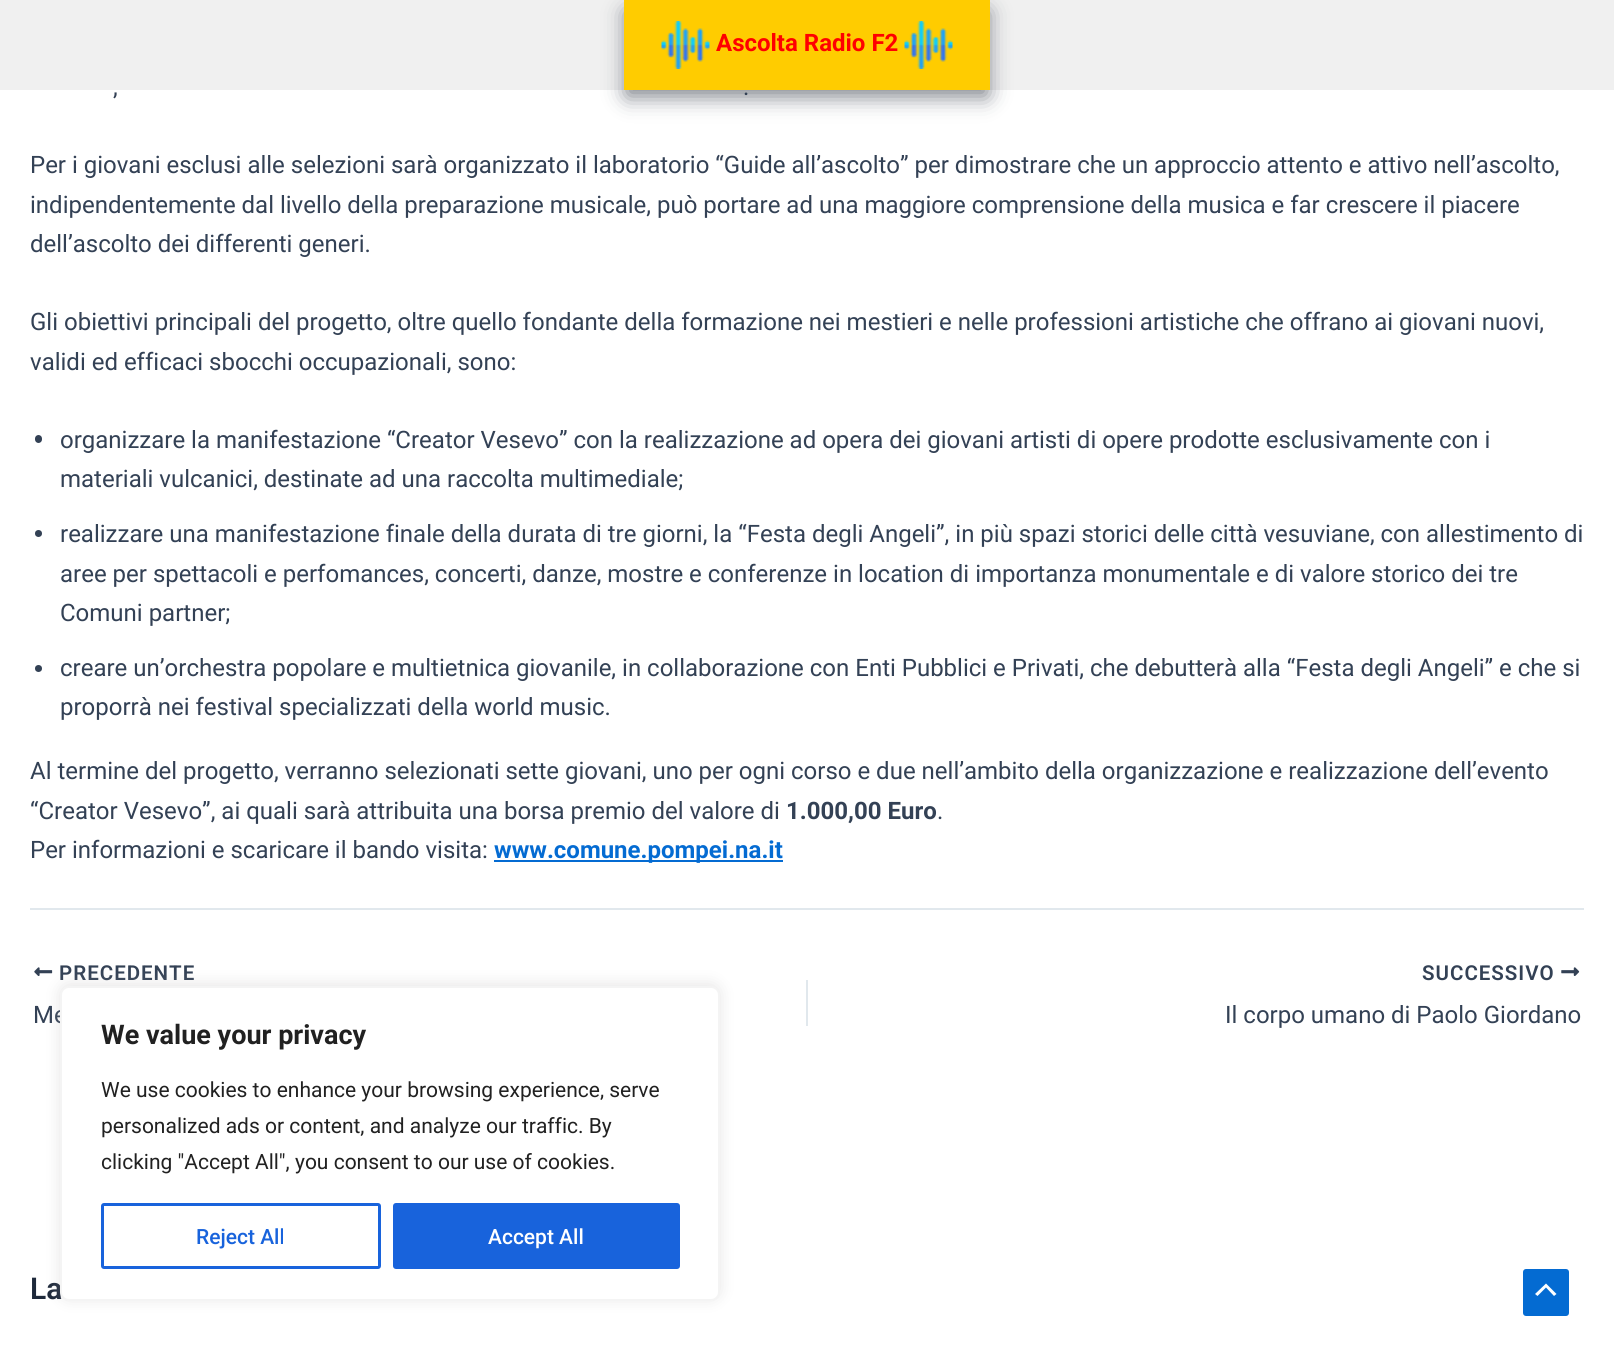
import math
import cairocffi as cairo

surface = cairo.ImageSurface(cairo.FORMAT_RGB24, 1614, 1360)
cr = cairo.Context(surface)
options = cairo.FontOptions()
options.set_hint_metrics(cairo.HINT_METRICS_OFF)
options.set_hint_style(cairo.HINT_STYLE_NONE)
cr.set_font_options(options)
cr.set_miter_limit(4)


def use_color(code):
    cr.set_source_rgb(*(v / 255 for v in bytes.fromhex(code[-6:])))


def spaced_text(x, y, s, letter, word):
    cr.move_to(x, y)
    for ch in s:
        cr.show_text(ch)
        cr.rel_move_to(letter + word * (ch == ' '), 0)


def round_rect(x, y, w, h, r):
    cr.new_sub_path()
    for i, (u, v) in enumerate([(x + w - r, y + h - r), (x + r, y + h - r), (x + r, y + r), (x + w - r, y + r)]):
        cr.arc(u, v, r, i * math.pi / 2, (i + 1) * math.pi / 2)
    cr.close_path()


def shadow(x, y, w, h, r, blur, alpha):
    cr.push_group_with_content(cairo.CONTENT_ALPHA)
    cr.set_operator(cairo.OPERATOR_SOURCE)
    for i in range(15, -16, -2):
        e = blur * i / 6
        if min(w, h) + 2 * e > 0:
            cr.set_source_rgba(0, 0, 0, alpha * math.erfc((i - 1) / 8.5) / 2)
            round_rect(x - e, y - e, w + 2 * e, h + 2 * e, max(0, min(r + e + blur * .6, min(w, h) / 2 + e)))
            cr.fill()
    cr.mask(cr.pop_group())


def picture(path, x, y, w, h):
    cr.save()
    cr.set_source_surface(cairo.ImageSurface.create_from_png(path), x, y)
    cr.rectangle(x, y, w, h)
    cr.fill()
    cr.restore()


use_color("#ffffff")
cr.paint()
use_color("#f0f0f0")
cr.rectangle(0, 0, 1614, 90)
cr.fill()
use_color("#101828")
shadow(627, 12, 360, 84, 0, 11, 0.57)
use_color("#ffcc00")
cr.rectangle(624, 0, 366, 90)
cr.fill()
picture("img1.png", 661, 21, 49, 48)
cr.select_font_face("Roboto", cairo.FONT_SLANT_NORMAL, cairo.FONT_WEIGHT_BOLD)
cr.set_font_size(24)
use_color("#ff0000")
cr.move_to(716, 51)
cr.show_text("Ascolta Radio F2")
picture("img2.png", 904, 21, 49, 48)
cr.select_font_face("Roboto")
use_color("#334155")
cr.move_to(113, 95)
cr.show_text(",")
cr.move_to(743, 95)
cr.show_text(".")
cr.move_to(30, 173)
cr.show_text("Per i giovani esclusi alle selezioni sarà organizzato il laboratorio “Guide all’ascolto” per dimostrare che un approccio attento e attivo nell’ascolto,")
cr.move_to(30, 213)
cr.show_text("indipendentemente dal livello della preparazione musicale, può portare ad una maggiore comprensione della musica e far crescere il piacere")
cr.move_to(30, 252)
cr.show_text("dell’ascolto dei differenti generi.")
cr.move_to(30, 330)
cr.show_text("Gli obiettivi principali del progetto, oltre quello fondante della formazione nei mestieri e nelle professioni artistiche che offrano ai giovani nuovi,")
cr.move_to(30, 370)
cr.show_text("validi ed efficaci sbocchi occupazionali, sono:")
round_rect(35, 435, 7, 8, 3.5)
cr.fill()
cr.move_to(60, 448)
cr.show_text("organizzare la manifestazione “Creator Vesevo” con la realizzazione ad opera dei giovani artisti di opere prodotte esclusivamente con i")
cr.move_to(60, 487)
cr.show_text("materiali vulcanici, destinate ad una raccolta multimediale;")
cr.new_path()
cr.arc(38.5, 533.5, 3.5, 0, 2 * math.pi)
cr.fill()
cr.move_to(60, 542)
cr.show_text("realizzare una manifestazione finale della durata di tre giorni, la “Festa degli Angeli”, in più spazi storici delle città vesuviane, con allestimento di")
cr.move_to(60, 582)
cr.show_text("aree per spettacoli e perfomances, concerti, danze, mostre e conferenze in location di importanza monumentale e di valore storico dei tre")
cr.move_to(60, 621)
cr.show_text("Comuni partner;")
cr.new_path()
cr.arc(38.5, 668.5, 3.5, 0, 2 * math.pi)
cr.fill()
cr.move_to(60, 676)
cr.show_text("creare un’orchestra popolare e multietnica giovanile, in collaborazione con Enti Pubblici e Privati, che debutterà alla “Festa degli Angeli” e che si")
cr.move_to(60, 715)
cr.show_text("proporrà nei festival specializzati della world music.")
cr.move_to(30, 779)
cr.show_text("Al termine del progetto, verranno selezionati sette giovani, uno per ogni corso e due nell’ambito della organizzazione e realizzazione dell’evento")
cr.move_to(30, 819)
cr.show_text("“Creator Vesevo”, ai quali sarà attribuita una borsa premio del valore di")
cr.select_font_face("Roboto", cairo.FONT_SLANT_NORMAL, cairo.FONT_WEIGHT_BOLD)
cr.move_to(786, 819)
cr.show_text("1.000,00 Euro")
cr.select_font_face("Roboto")
cr.move_to(937, 819)
cr.show_text(".")
cr.move_to(30, 858)
cr.show_text("Per informazioni e scaricare il bando visita:")
use_color("#046bd2")
cr.rectangle(494, 860, 289, 2)
cr.fill()
cr.select_font_face("Roboto", cairo.FONT_SLANT_NORMAL, cairo.FONT_WEIGHT_BOLD)
cr.move_to(494, 858)
cr.show_text("www.comune.pompei.na.it")
use_color("#e1e8ed")
cr.rectangle(30, 908, 1554, 2)
cr.fill()
picture("img3.png", 34, 967, 19, 9)
cr.select_font_face("Roboto SemiBold")
cr.set_font_size(20.5)
use_color("#334155")
spaced_text(59, 980, "PRECEDENTE", 1, 0)
cr.select_font_face("Roboto")
cr.set_font_size(24)
cr.move_to(33, 1023)
cr.show_text("Me")
use_color("#e1e8ed")
cr.rectangle(806, 980, 2, 46)
cr.fill()
cr.select_font_face("Roboto SemiBold")
cr.set_font_size(20.5)
use_color("#334155")
spaced_text(1422, 980, "SUCCESSIVO", 1, 0)
picture("img4.png", 1561, 967, 19, 9)
cr.select_font_face("Roboto")
cr.set_font_size(24)
cr.move_to(1225, 1023)
cr.show_text("Il corpo umano di Paolo Giordano")
cr.select_font_face("Roboto SemiBold")
cr.set_font_size(30)
use_color("#1e293b")
cr.move_to(30, 1299)
cr.show_text("La")
use_color("#acabab")
shadow(60, 984, 660, 315, 9, 7.5, 0.3)
use_color("#ffffff")
round_rect(61, 987, 658, 313, 8)
cr.fill_preserve()
use_color("#f4f4f4")
cr.stroke()
cr.select_font_face("Roboto", cairo.FONT_SLANT_NORMAL, cairo.FONT_WEIGHT_BOLD)
cr.set_font_size(27)
use_color("#212121")
cr.move_to(101, 1044)
cr.show_text("We value your privacy")
cr.select_font_face("Roboto")
cr.set_font_size(21)
cr.move_to(101, 1097)
cr.show_text("We use cookies to enhance your browsing experience, serve")
cr.move_to(101, 1133)
cr.show_text("personalized ads or content, and analyze our traffic. By")
cr.move_to(101, 1169)
cr.show_text("clicking \"Accept All\", you consent to our use of cookies.")
round_rect(102.5, 1204.5, 277, 63, 1.5)
use_color("#1863dc")
cr.set_line_width(3)
cr.stroke()
cr.select_font_face("Roboto Medium")
cr.move_to(196, 1244)
cr.show_text("Reject All")
round_rect(394.5, 1204.5, 284, 63, 1.5)
cr.fill_preserve()
cr.stroke()
use_color("#ffffff")
cr.move_to(488, 1244)
cr.show_text("Accept All")
use_color("#046bd2")
round_rect(1523, 1269, 46, 47, 3)
cr.fill()
use_color("#ffffff")
cr.new_path()
cr.move_to(1556.5, 1294)
cr.line_to(1546, 1283.5)
cr.line_to(1535, 1294)
cr.line_to(1537.5, 1296)
cr.line_to(1546, 1287.5)
cr.line_to(1554, 1296)
cr.close_path()
cr.fill()
surface.write_to_png("result.png")
